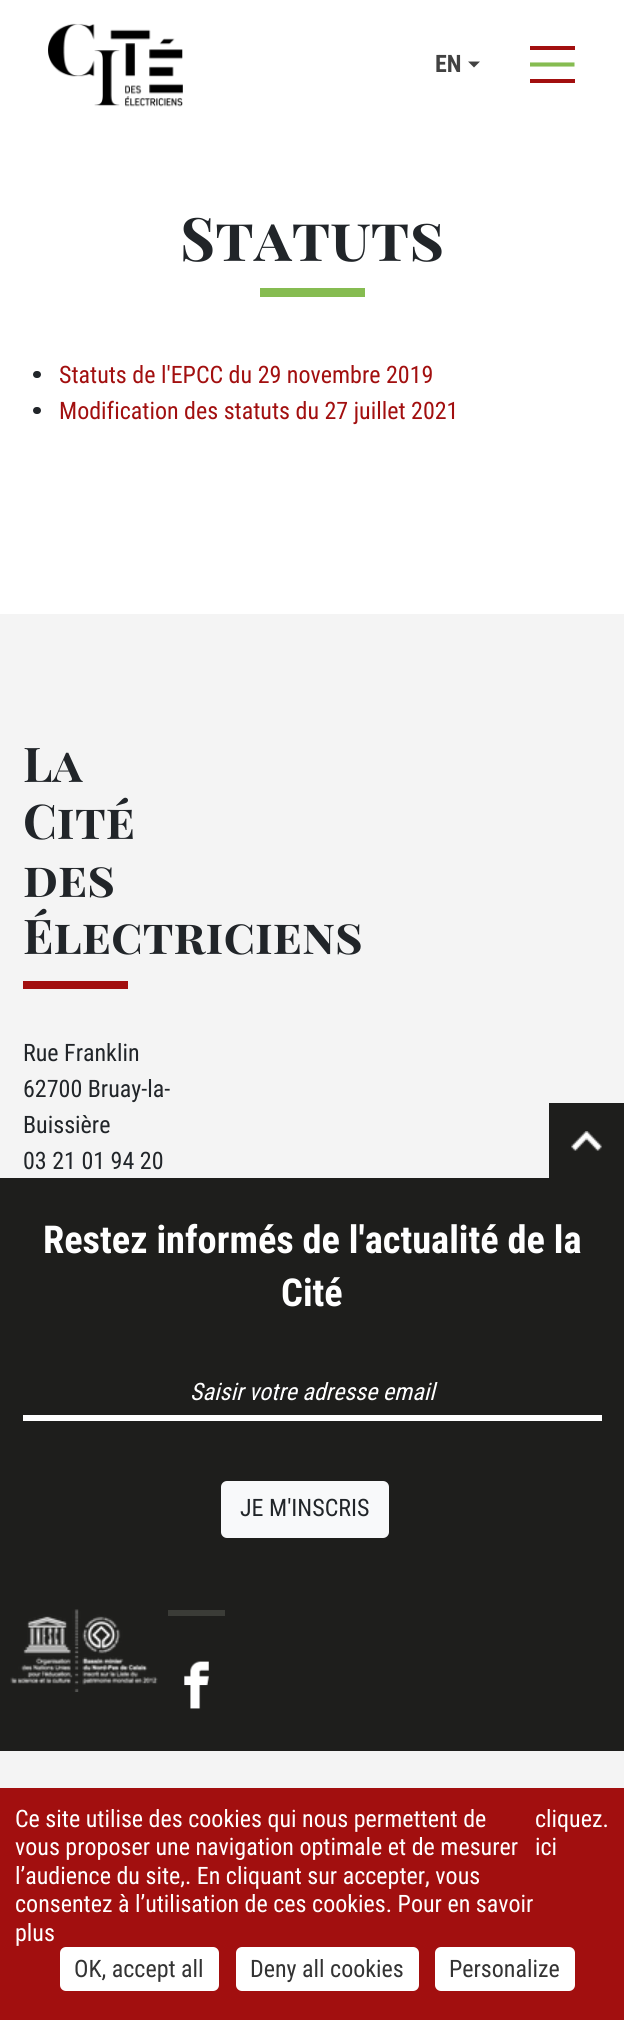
import math
import cairocffi as cairo

surface = cairo.ImageSurface(cairo.FORMAT_RGB24, 624, 2020)
cr = cairo.Context(surface)
options = cairo.FontOptions()
options.set_hint_metrics(cairo.HINT_METRICS_OFF)
options.set_hint_style(cairo.HINT_STYLE_NONE)
cr.set_font_options(options)
cr.set_miter_limit(4)


def use_color(code):
    cr.set_source_rgb(*(v / 255 for v in bytes.fromhex(code[-6:])))


def round_rect(x, y, w, h, r):
    cr.new_sub_path()
    for i, (u, v) in enumerate([(x + w - r, y + h - r), (x + r, y + h - r), (x + r, y + r), (x + w - r, y + r)]):
        cr.arc(u, v, r, i * math.pi / 2, (i + 1) * math.pi / 2)
    cr.close_path()


def picture(path, x, y, w, h):
    cr.save()
    cr.set_source_surface(cairo.ImageSurface.create_from_png(path), x, y)
    cr.rectangle(x, y, w, h)
    cr.fill()
    cr.restore()


use_color("#ffffff")
cr.paint()
picture("img1.png", 48, 23, 135, 84)
cr.select_font_face("Roboto Condensed", cairo.FONT_SLANT_NORMAL, cairo.FONT_WEIGHT_BOLD)
cr.set_font_size(24)
use_color("#424242")
cr.move_to(435, 72)
cr.show_text("EN")
cr.new_path()
cr.move_to(468, 61.5)
cr.line_to(480, 61.5)
cr.line_to(474, 67.5)
cr.close_path()
cr.fill()
use_color("#a20f0f")
cr.rectangle(530, 79, 45, 4)
cr.fill()
cr.save()
cr.rectangle(530, 42, 45, 45)
cr.clip()
cr.new_path()
cr.move_to(529.5, 64.5)
cr.line_to(574.5, 64.5)
use_color("#86bc51")
cr.set_line_width(4.1)
cr.stroke()
cr.restore()
cr.rectangle(530, 46, 45, 4)
cr.fill()
cr.select_font_face("Playfair Display SC", cairo.FONT_SLANT_NORMAL, cairo.FONT_WEIGHT_BOLD)
cr.set_font_size(60)
use_color("#212529")
cr.move_to(180, 261)
cr.show_text("Statuts")
use_color("#86bc51")
cr.rectangle(260, 288, 105, 9)
cr.fill()
use_color("#212529")
round_rect(33, 371, 8, 7, 3.5)
cr.fill()
cr.select_font_face("Roboto Condensed")
cr.set_font_size(24)
use_color("#a20f0f")
cr.move_to(59, 383)
cr.show_text("Statuts de l'EPCC du 29 novembre 2019")
use_color("#212529")
round_rect(33, 407, 8, 7, 3.5)
cr.fill()
use_color("#a20f0f")
cr.move_to(59, 419)
cr.show_text("Modification des statuts du 27 juillet 2021")
use_color("#f4f4f4")
cr.rectangle(0, 614, 624, 564)
cr.fill()
cr.select_font_face("Playfair Display SC", cairo.FONT_SLANT_NORMAL, cairo.FONT_WEIGHT_BOLD)
cr.set_font_size(48)
use_color("#212529")
cr.move_to(23, 782)
cr.show_text("La")
cr.move_to(23, 839)
cr.show_text("Cité")
cr.move_to(23, 897)
cr.show_text("des")
cr.move_to(23, 954)
cr.show_text("Électriciens")
use_color("#a20f0f")
cr.rectangle(23, 981, 105, 8)
cr.fill()
cr.select_font_face("Roboto Condensed")
cr.set_font_size(24)
use_color("#212529")
cr.move_to(23, 1061)
cr.show_text("Rue Franklin")
cr.move_to(23, 1097)
cr.show_text("62700 Bruay-la-")
cr.move_to(23, 1133)
cr.show_text("Buissière")
cr.move_to(23, 1169)
cr.show_text("03 21 01 94 20")
use_color("#1e1e1c")
cr.rectangle(549, 1103, 75, 75)
cr.fill()
picture("img2.png", 571, 1131, 31, 20)
cr.rectangle(0, 1178, 624, 573)
cr.fill()
cr.select_font_face("Roboto Condensed", cairo.FONT_SLANT_NORMAL, cairo.FONT_WEIGHT_BOLD)
cr.set_font_size(38.4)
use_color("#ffffff")
cr.move_to(43, 1253)
cr.show_text("Restez informés de l'actualité de la")
cr.move_to(281, 1306)
cr.show_text("Cité")
cr.rectangle(23, 1415, 579, 6)
cr.fill()
cr.select_font_face("Roboto Condensed", cairo.FONT_SLANT_ITALIC)
cr.set_font_size(24)
cr.move_to(190, 1400)
cr.show_text("Saisir votre adresse email")
use_color("#f8f9fa")
round_rect(222, 1482, 166, 55, 5)
cr.fill_preserve()
cr.stroke()
cr.select_font_face("Roboto Condensed")
use_color("#212529")
cr.move_to(240, 1516)
cr.show_text("JE M'INSCRIS")
picture("img3.png", 10, 1609, 148, 83)
use_color("#3b3c37")
cr.rectangle(168, 1610, 57, 6)
cr.fill()
picture("img4.png", 184, 1661, 25, 48)
use_color("#f4f4f4")
cr.rectangle(0, 1751, 624, 37)
cr.fill()
use_color("#a20f0f")
cr.rectangle(0, 1788, 624, 232)
cr.fill()
use_color("#ffffff")
cr.move_to(15, 1827)
cr.show_text("Ce site utilise des cookies qui nous permettent de")
cr.move_to(535, 1827)
cr.show_text("cliquez.")
cr.move_to(535, 1855)
cr.show_text("ici")
cr.move_to(15, 1855)
cr.show_text("vous proposer une navigation optimale et de mesurer")
cr.move_to(15, 1884)
cr.show_text("l’audience du site,. En cliquant sur accepter, vous")
cr.move_to(15, 1912)
cr.show_text("consentez à l’utilisation de ces cookies. Pour en savoir")
cr.move_to(15, 1941)
cr.show_text("plus")
round_rect(60, 1947, 159, 44, 6)
cr.fill()
use_color("#333333")
cr.move_to(74, 1977)
cr.show_text("OK, accept all")
use_color("#ffffff")
round_rect(236, 1947, 183, 44, 6)
cr.fill()
use_color("#333333")
cr.move_to(250, 1977)
cr.show_text("Deny all cookies")
use_color("#ffffff")
round_rect(435, 1947, 140, 44, 6)
cr.fill()
use_color("#333333")
cr.move_to(449, 1977)
cr.show_text("Personalize")
surface.write_to_png("result.png")
